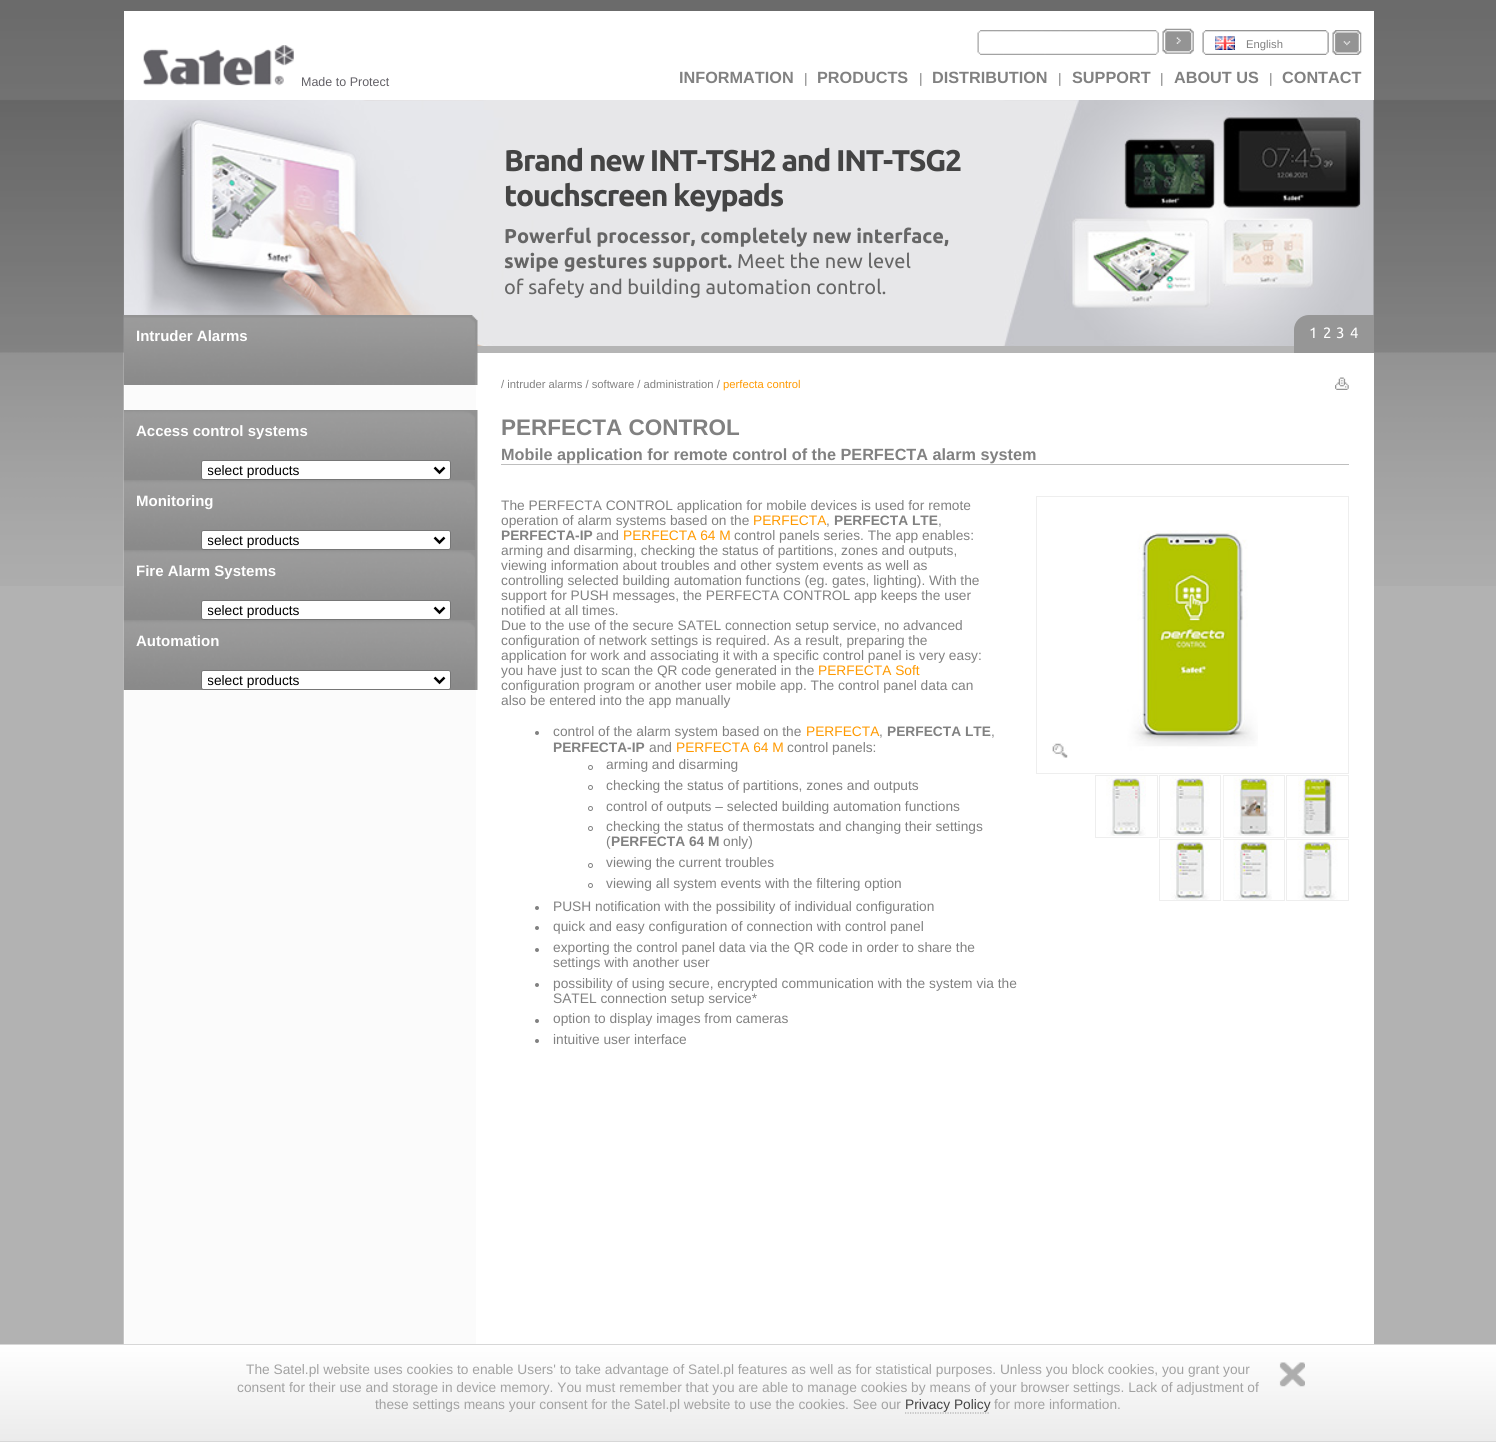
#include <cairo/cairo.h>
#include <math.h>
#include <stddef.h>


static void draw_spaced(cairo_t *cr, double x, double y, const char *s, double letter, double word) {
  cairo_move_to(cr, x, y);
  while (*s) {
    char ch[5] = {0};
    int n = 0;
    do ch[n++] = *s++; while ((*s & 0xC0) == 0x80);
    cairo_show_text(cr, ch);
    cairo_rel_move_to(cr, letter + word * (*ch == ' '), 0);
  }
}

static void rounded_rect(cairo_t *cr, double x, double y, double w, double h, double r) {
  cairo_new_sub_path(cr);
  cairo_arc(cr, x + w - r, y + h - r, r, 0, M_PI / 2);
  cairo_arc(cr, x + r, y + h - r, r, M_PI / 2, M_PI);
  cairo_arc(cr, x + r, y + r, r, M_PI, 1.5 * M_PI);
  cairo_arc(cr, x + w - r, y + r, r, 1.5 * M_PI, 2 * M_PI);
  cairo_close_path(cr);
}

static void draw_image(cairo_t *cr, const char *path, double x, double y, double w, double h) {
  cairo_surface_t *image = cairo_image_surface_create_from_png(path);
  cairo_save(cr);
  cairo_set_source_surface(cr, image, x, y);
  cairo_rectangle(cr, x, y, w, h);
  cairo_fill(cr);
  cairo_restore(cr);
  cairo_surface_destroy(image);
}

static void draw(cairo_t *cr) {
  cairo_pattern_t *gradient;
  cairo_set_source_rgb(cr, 178 / 255.0, 178 / 255.0, 178 / 255.0);
  cairo_paint(cr);
  draw_image(cr, "images/1.png", 0, 0, 1496, 586);
  cairo_set_source_rgb(cr, 1, 1, 1);
  cairo_rectangle(cr, 124, 11, 1250, 89);
  cairo_fill(cr);
  draw_image(cr, "images/2.png", 977, 30, 182, 25);
  draw_image(cr, "images/3.png", 1162, 28, 32, 26);
  draw_image(cr, "images/4.png", 1202, 30, 160, 25);
  draw_image(cr, "images/5.png", 1215, 36, 20, 14);
  draw_image(cr, "images/6.png", 143, 45, 151, 41);
  draw_image(cr, "images/7.png", 123, 100, 1251, 252);
  cairo_set_source_rgb(cr, 150 / 255.0, 150 / 255.0, 150 / 255.0);
  cairo_new_path(cr);
  cairo_move_to(cr, 1309, 315);
  cairo_line_to(cr, 1374, 315);
  cairo_line_to(cr, 1374, 353);
  cairo_line_to(cr, 1294, 353);
  cairo_line_to(cr, 1294, 330);
  cairo_curve_to(cr, 1294, 321.5, 1300.5, 315, 1309, 315);
  cairo_close_path(cr);
  cairo_fill(cr);
  cairo_set_source_rgb(cr, 181 / 255.0, 181 / 255.0, 181 / 255.0);
  cairo_rectangle(cr, 477, 346, 817, 7);
  cairo_fill(cr);
  draw_image(cr, "images/8.png", 123, 352, 353, 992);
  cairo_set_source_rgb(cr, 1, 1, 1);
  cairo_rectangle(cr, 476, 353, 898, 991);
  cairo_fill(cr);
  draw_image(cr, "images/9.png", 123, 315, 355, 70);
  draw_image(cr, "images/10.png", 123, 410, 355, 70);
  rounded_rect(cr, 201.5, 460.5, 249, 19, 2);
  cairo_fill_preserve(cr);
  cairo_set_source_rgb(cr, 118 / 255.0, 118 / 255.0, 118 / 255.0);
  cairo_set_line_width(cr, 1);
  cairo_stroke(cr);
  cairo_new_path(cr);
  cairo_move_to(cr, 434.5, 467.5);
  cairo_line_to(cr, 439.5, 472.5);
  cairo_line_to(cr, 444.5, 467.5);
  cairo_set_source_rgb(cr, 0, 0, 0);
  cairo_set_line_width(cr, 2.5);
  cairo_stroke(cr);
  draw_image(cr, "images/11.png", 123, 480, 355, 70);
  cairo_set_source_rgb(cr, 1, 1, 1);
  rounded_rect(cr, 201.5, 530.5, 249, 19, 2);
  cairo_fill_preserve(cr);
  cairo_set_source_rgb(cr, 118 / 255.0, 118 / 255.0, 118 / 255.0);
  cairo_set_line_width(cr, 1);
  cairo_stroke(cr);
  cairo_new_path(cr);
  cairo_move_to(cr, 434.5, 537.5);
  cairo_line_to(cr, 439.5, 542.5);
  cairo_line_to(cr, 444.5, 537.5);
  cairo_set_source_rgb(cr, 0, 0, 0);
  cairo_set_line_width(cr, 2.5);
  cairo_stroke(cr);
  draw_image(cr, "images/12.png", 123, 550, 355, 70);
  cairo_set_source_rgb(cr, 1, 1, 1);
  rounded_rect(cr, 201.5, 600.5, 249, 19, 2);
  cairo_fill_preserve(cr);
  cairo_set_source_rgb(cr, 118 / 255.0, 118 / 255.0, 118 / 255.0);
  cairo_set_line_width(cr, 1);
  cairo_stroke(cr);
  cairo_new_path(cr);
  cairo_move_to(cr, 434.5, 607.5);
  cairo_line_to(cr, 439.5, 612.5);
  cairo_line_to(cr, 444.5, 607.5);
  cairo_set_source_rgb(cr, 0, 0, 0);
  cairo_set_line_width(cr, 2.5);
  cairo_stroke(cr);
  draw_image(cr, "images/13.png", 123, 620, 355, 70);
  cairo_set_source_rgb(cr, 1, 1, 1);
  rounded_rect(cr, 201.5, 670.5, 249, 19, 2);
  cairo_fill_preserve(cr);
  cairo_set_source_rgb(cr, 118 / 255.0, 118 / 255.0, 118 / 255.0);
  cairo_set_line_width(cr, 1);
  cairo_stroke(cr);
  cairo_new_path(cr);
  cairo_move_to(cr, 434.5, 677.5);
  cairo_line_to(cr, 439.5, 682.5);
  cairo_line_to(cr, 444.5, 677.5);
  cairo_set_source_rgb(cr, 0, 0, 0);
  cairo_set_line_width(cr, 2.5);
  cairo_stroke(cr);
  draw_image(cr, "images/14.png", 1335, 377, 14, 13);
  cairo_set_source_rgb(cr, 190 / 255.0, 190 / 255.0, 190 / 255.0);
  cairo_rectangle(cr, 501, 464, 848, 1);
  cairo_fill(cr);
  cairo_set_source_rgb(cr, 129 / 255.0, 129 / 255.0, 129 / 255.0);
  cairo_arc(cr, 537, 733, 2, 0, 2 * M_PI);
  cairo_fill(cr);
  cairo_arc(cr, 590.5, 767.5, 2, 0, 2 * M_PI);
  cairo_set_line_width(cr, 1);
  cairo_stroke(cr);
  cairo_arc(cr, 590.5, 787.5, 2, 0, 2 * M_PI);
  cairo_stroke(cr);
  cairo_arc(cr, 590.5, 808.5, 2, 0, 2 * M_PI);
  cairo_stroke(cr);
  cairo_arc(cr, 590.5, 828.5, 2, 0, 2 * M_PI);
  cairo_stroke(cr);
  cairo_arc(cr, 590.5, 865.5, 2, 0, 2 * M_PI);
  cairo_stroke(cr);
  cairo_arc(cr, 590.5, 885.5, 2, 0, 2 * M_PI);
  cairo_stroke(cr);
  cairo_arc(cr, 537, 908, 2, 0, 2 * M_PI);
  cairo_fill(cr);
  cairo_arc(cr, 537, 928, 2, 0, 2 * M_PI);
  cairo_fill(cr);
  cairo_arc(cr, 537, 950, 2, 0, 2 * M_PI);
  cairo_fill(cr);
  cairo_arc(cr, 537, 985, 2, 0, 2 * M_PI);
  cairo_fill(cr);
  cairo_arc(cr, 537, 1021, 2, 0, 2 * M_PI);
  cairo_fill(cr);
  cairo_arc(cr, 537, 1041, 2, 0, 2 * M_PI);
  cairo_fill(cr);
  cairo_rectangle(cr, 1036.5, 496.5, 312, 277);
  cairo_set_source_rgb(cr, 238 / 255.0, 238 / 255.0, 238 / 255.0);
  cairo_stroke(cr);
  draw_image(cr, "images/15.png", 1052, 743, 16, 15);
  draw_image(cr, "images/16.png", 1067, 530, 191, 228);
  cairo_rectangle(cr, 1095.5, 775.5, 62, 62);
  cairo_stroke(cr);
  draw_image(cr, "images/17.png", 1106, 776, 40, 60);
  cairo_rectangle(cr, 1159.5, 775.5, 61, 62);
  cairo_stroke(cr);
  draw_image(cr, "images/18.png", 1170, 776, 40, 60);
  cairo_rectangle(cr, 1223.5, 775.5, 61, 62);
  cairo_stroke(cr);
  draw_image(cr, "images/19.png", 1223, 776, 51, 60);
  cairo_rectangle(cr, 1286.5, 775.5, 62, 62);
  cairo_stroke(cr);
  draw_image(cr, "images/20.png", 1298, 776, 38, 60);
  cairo_rectangle(cr, 1159.5, 839.5, 61, 61);
  cairo_stroke(cr);
  draw_image(cr, "images/21.png", 1170, 840, 40, 60);
  cairo_rectangle(cr, 1223.5, 839.5, 61, 61);
  cairo_stroke(cr);
  draw_image(cr, "images/22.png", 1223, 840, 49, 60);
  cairo_rectangle(cr, 1286.5, 839.5, 62, 61);
  cairo_stroke(cr);
  draw_image(cr, "images/23.png", 1297, 840, 41, 60);
  gradient = cairo_pattern_create_linear(748, 1345, 748, 1441);
  cairo_pattern_add_color_stop_rgba(gradient, 0, 1, 1, 1, 1);
  cairo_pattern_add_color_stop_rgba(gradient, 1, 235 / 255.0, 235 / 255.0, 235 / 255.0, 1);
  cairo_set_source(cr, gradient);
  cairo_pattern_destroy(gradient);
  cairo_rectangle(cr, 0, 1345, 1496, 96);
  cairo_fill(cr);
  cairo_set_source_rgb(cr, 215 / 255.0, 215 / 255.0, 215 / 255.0);
  cairo_rectangle(cr, 0, 1344, 1496, 1);
  cairo_fill(cr);
  cairo_rectangle(cr, 0, 1441, 1496, 1);
  cairo_fill(cr);
  cairo_new_path(cr);
  cairo_move_to(cr, 905, 1413);
  cairo_line_to(cr, 990, 1413);
  cairo_set_source_rgb(cr, 174 / 255.0, 174 / 255.0, 174 / 255.0);
  cairo_set_line_width(cr, 1.2);
  cairo_set_dash(cr, (double[]){1.25, 1.25}, 2, 0);
  cairo_stroke(cr);
  draw_image(cr, "images/24.png", 1279, 1362, 26, 25);
  cairo_select_font_face(cr, "Liberation Sans", CAIRO_FONT_SLANT_NORMAL, CAIRO_FONT_WEIGHT_NORMAL);
  cairo_set_font_size(cr, 11.25);
  cairo_set_source_rgb(cr, 129 / 255.0, 129 / 255.0, 129 / 255.0);
  cairo_move_to(cr, 1246, 48);
  cairo_show_text(cr, "English");
  cairo_set_font_size(cr, 12.5);
  cairo_set_source_rgb(cr, 98 / 255.0, 96 / 255.0, 102 / 255.0);
  cairo_move_to(cr, 301, 86);
  cairo_show_text(cr, "Made to Protect");
  cairo_select_font_face(cr, "Liberation Sans", CAIRO_FONT_SLANT_NORMAL, CAIRO_FONT_WEIGHT_BOLD);
  cairo_set_font_size(cr, 16.25);
  cairo_set_source_rgb(cr, 129 / 255.0, 129 / 255.0, 129 / 255.0);
  cairo_move_to(cr, 679, 83);
  cairo_show_text(cr, "INFORMATION");
  cairo_select_font_face(cr, "Liberation Sans", CAIRO_FONT_SLANT_NORMAL, CAIRO_FONT_WEIGHT_NORMAL);
  cairo_set_font_size(cr, 13.75);
  cairo_move_to(cr, 804, 83);
  cairo_show_text(cr, "|");
  cairo_select_font_face(cr, "Liberation Sans", CAIRO_FONT_SLANT_NORMAL, CAIRO_FONT_WEIGHT_BOLD);
  cairo_set_font_size(cr, 16.25);
  cairo_move_to(cr, 817, 83);
  cairo_show_text(cr, "PRODUCTS");
  cairo_select_font_face(cr, "Liberation Sans", CAIRO_FONT_SLANT_NORMAL, CAIRO_FONT_WEIGHT_NORMAL);
  cairo_set_font_size(cr, 13.75);
  cairo_move_to(cr, 919, 83);
  cairo_show_text(cr, "|");
  cairo_select_font_face(cr, "Liberation Sans", CAIRO_FONT_SLANT_NORMAL, CAIRO_FONT_WEIGHT_BOLD);
  cairo_set_font_size(cr, 16.25);
  cairo_move_to(cr, 932, 83);
  cairo_show_text(cr, "DISTRIBUTION");
  cairo_select_font_face(cr, "Liberation Sans", CAIRO_FONT_SLANT_NORMAL, CAIRO_FONT_WEIGHT_NORMAL);
  cairo_set_font_size(cr, 13.75);
  cairo_move_to(cr, 1058, 83);
  cairo_show_text(cr, "|");
  cairo_select_font_face(cr, "Liberation Sans", CAIRO_FONT_SLANT_NORMAL, CAIRO_FONT_WEIGHT_BOLD);
  cairo_set_font_size(cr, 16.25);
  cairo_move_to(cr, 1072, 83);
  cairo_show_text(cr, "SUPPORT");
  cairo_select_font_face(cr, "Liberation Sans", CAIRO_FONT_SLANT_NORMAL, CAIRO_FONT_WEIGHT_NORMAL);
  cairo_set_font_size(cr, 13.75);
  cairo_move_to(cr, 1160, 83);
  cairo_show_text(cr, "|");
  cairo_select_font_face(cr, "Liberation Sans", CAIRO_FONT_SLANT_NORMAL, CAIRO_FONT_WEIGHT_BOLD);
  cairo_set_font_size(cr, 16.25);
  cairo_move_to(cr, 1174, 83);
  cairo_show_text(cr, "ABOUT US");
  cairo_select_font_face(cr, "Liberation Sans", CAIRO_FONT_SLANT_NORMAL, CAIRO_FONT_WEIGHT_NORMAL);
  cairo_set_font_size(cr, 13.75);
  cairo_move_to(cr, 1269, 83);
  cairo_show_text(cr, "|");
  cairo_select_font_face(cr, "Liberation Sans", CAIRO_FONT_SLANT_NORMAL, CAIRO_FONT_WEIGHT_BOLD);
  cairo_set_font_size(cr, 16.25);
  cairo_move_to(cr, 1282, 83);
  cairo_show_text(cr, "CONTACT");
  cairo_select_font_face(cr, "Ubuntu", CAIRO_FONT_SLANT_NORMAL, CAIRO_FONT_WEIGHT_BOLD);
  cairo_set_font_size(cr, 30);
  cairo_set_source_rgb(cr, 68 / 255.0, 68 / 255.0, 68 / 255.0);
  draw_spaced(cr, 504, 171, "Brand new INT-TSH2 and INT-TSG2", -1.25, 0);
  draw_spaced(cr, 504, 206, "touchscreen keypads", -1.25, 0);
  cairo_set_font_size(cr, 20);
  cairo_set_source_rgb(cr, 102 / 255.0, 102 / 255.0, 102 / 255.0);
  cairo_move_to(cr, 504, 243);
  cairo_show_text(cr, "Powerful processor, completely new interface,");
  cairo_move_to(cr, 504, 268);
  cairo_show_text(cr, "swipe gestures support.");
  cairo_select_font_face(cr, "Ubuntu", CAIRO_FONT_SLANT_NORMAL, CAIRO_FONT_WEIGHT_NORMAL);
  cairo_move_to(cr, 737, 268);
  cairo_show_text(cr, "Meet the new level");
  cairo_move_to(cr, 504, 294);
  cairo_show_text(cr, "of safety and building automation control.");
  cairo_set_font_size(cr, 15);
  cairo_set_source_rgb(cr, 1, 1, 1);
  cairo_move_to(cr, 1309, 338);
  cairo_show_text(cr, "1");
  cairo_move_to(cr, 1323, 338);
  cairo_show_text(cr, "2");
  cairo_move_to(cr, 1336, 338);
  cairo_show_text(cr, "3");
  cairo_move_to(cr, 1350, 338);
  cairo_show_text(cr, "4");
  cairo_select_font_face(cr, "Liberation Sans", CAIRO_FONT_SLANT_NORMAL, CAIRO_FONT_WEIGHT_BOLD);
  cairo_move_to(cr, 136, 341);
  cairo_show_text(cr, "Intruder Alarms");
  cairo_move_to(cr, 136, 436);
  cairo_show_text(cr, "Access control systems");
  cairo_save(cr);
  cairo_rectangle(cr, 208, 461, 222, 18);
  cairo_clip(cr);
  cairo_select_font_face(cr, "Liberation Sans", CAIRO_FONT_SLANT_NORMAL, CAIRO_FONT_WEIGHT_NORMAL);
  cairo_set_font_size(cr, 13.75);
  cairo_set_source_rgb(cr, 0, 0, 0);
  cairo_move_to(cr, 207, 475);
  cairo_show_text(cr, "select products");
  cairo_restore(cr);
  cairo_move_to(cr, 136, 506);
  cairo_show_text(cr, "Monitoring");
  cairo_save(cr);
  cairo_rectangle(cr, 208, 531, 222, 18);
  cairo_clip(cr);
  cairo_select_font_face(cr, "Liberation Sans", CAIRO_FONT_SLANT_NORMAL, CAIRO_FONT_WEIGHT_NORMAL);
  cairo_set_font_size(cr, 13.75);
  cairo_set_source_rgb(cr, 0, 0, 0);
  cairo_move_to(cr, 207, 545);
  cairo_show_text(cr, "select products");
  cairo_restore(cr);
  cairo_move_to(cr, 136, 576);
  cairo_show_text(cr, "Fire Alarm Systems");
  cairo_save(cr);
  cairo_rectangle(cr, 208, 601, 222, 18);
  cairo_clip(cr);
  cairo_select_font_face(cr, "Liberation Sans", CAIRO_FONT_SLANT_NORMAL, CAIRO_FONT_WEIGHT_NORMAL);
  cairo_set_font_size(cr, 13.75);
  cairo_set_source_rgb(cr, 0, 0, 0);
  cairo_move_to(cr, 207, 615);
  cairo_show_text(cr, "select products");
  cairo_restore(cr);
  cairo_move_to(cr, 136, 646);
  cairo_show_text(cr, "Automation");
  cairo_save(cr);
  cairo_rectangle(cr, 208, 671, 222, 18);
  cairo_clip(cr);
  cairo_select_font_face(cr, "Liberation Sans", CAIRO_FONT_SLANT_NORMAL, CAIRO_FONT_WEIGHT_NORMAL);
  cairo_set_font_size(cr, 13.75);
  cairo_set_source_rgb(cr, 0, 0, 0);
  cairo_move_to(cr, 207, 685);
  cairo_show_text(cr, "select products");
  cairo_restore(cr);
  cairo_select_font_face(cr, "Liberation Sans", CAIRO_FONT_SLANT_NORMAL, CAIRO_FONT_WEIGHT_NORMAL);
  cairo_set_font_size(cr, 11.25);
  cairo_set_source_rgb(cr, 129 / 255.0, 129 / 255.0, 129 / 255.0);
  cairo_move_to(cr, 501, 388);
  cairo_show_text(cr, "/ intruder alarms / software / administration /");
  cairo_set_source_rgb(cr, 1, 153 / 255.0, 0);
  cairo_move_to(cr, 723, 388);
  cairo_show_text(cr, "perfecta control");
  cairo_select_font_face(cr, "Liberation Sans", CAIRO_FONT_SLANT_NORMAL, CAIRO_FONT_WEIGHT_BOLD);
  cairo_set_font_size(cr, 22.5);
  cairo_set_source_rgb(cr, 129 / 255.0, 129 / 255.0, 129 / 255.0);
  cairo_move_to(cr, 501, 435);
  cairo_show_text(cr, "PERFECTA CONTROL");
  cairo_set_font_size(cr, 16.25);
  cairo_move_to(cr, 501, 460);
  cairo_show_text(cr, "Mobile application for remote control of the PERFECTA alarm system");
  cairo_select_font_face(cr, "Liberation Sans", CAIRO_FONT_SLANT_NORMAL, CAIRO_FONT_WEIGHT_NORMAL);
  cairo_set_font_size(cr, 13.75);
  cairo_move_to(cr, 501, 510);
  cairo_show_text(cr, "The PERFECTA CONTROL application for mobile devices is used for remote");
  cairo_move_to(cr, 501, 525);
  cairo_show_text(cr, "operation of alarm systems based on the");
  cairo_set_source_rgb(cr, 1, 153 / 255.0, 0);
  cairo_move_to(cr, 753, 525);
  cairo_show_text(cr, "PERFECTA");
  cairo_set_source_rgb(cr, 129 / 255.0, 129 / 255.0, 129 / 255.0);
  cairo_move_to(cr, 826, 525);
  cairo_show_text(cr, ",");
  cairo_select_font_face(cr, "Liberation Sans", CAIRO_FONT_SLANT_NORMAL, CAIRO_FONT_WEIGHT_BOLD);
  cairo_move_to(cr, 834, 525);
  cairo_show_text(cr, "PERFECTA LTE");
  cairo_select_font_face(cr, "Liberation Sans", CAIRO_FONT_SLANT_NORMAL, CAIRO_FONT_WEIGHT_NORMAL);
  cairo_move_to(cr, 938, 525);
  cairo_show_text(cr, ",");
  cairo_select_font_face(cr, "Liberation Sans", CAIRO_FONT_SLANT_NORMAL, CAIRO_FONT_WEIGHT_BOLD);
  cairo_move_to(cr, 501, 540);
  cairo_show_text(cr, "PERFECTA-IP");
  cairo_select_font_face(cr, "Liberation Sans", CAIRO_FONT_SLANT_NORMAL, CAIRO_FONT_WEIGHT_NORMAL);
  cairo_move_to(cr, 596, 540);
  cairo_show_text(cr, "and");
  cairo_set_source_rgb(cr, 1, 153 / 255.0, 0);
  cairo_move_to(cr, 623, 540);
  cairo_show_text(cr, "PERFECTA 64 M");
  cairo_set_source_rgb(cr, 129 / 255.0, 129 / 255.0, 129 / 255.0);
  cairo_move_to(cr, 734, 540);
  cairo_show_text(cr, "control panels series. The app enables:");
  cairo_move_to(cr, 501, 555);
  cairo_show_text(cr, "arming and disarming, checking the status of partitions, zones and outputs,");
  cairo_move_to(cr, 501, 570);
  cairo_show_text(cr, "viewing information about troubles and other system events as well as");
  cairo_move_to(cr, 501, 585);
  cairo_show_text(cr, "controlling selected building automation functions (eg. gates, lighting). With the");
  cairo_move_to(cr, 501, 600);
  cairo_show_text(cr, "support for PUSH messages, the PERFECTA CONTROL app keeps the user");
  cairo_move_to(cr, 501, 615);
  cairo_show_text(cr, "notified at all times.");
  cairo_move_to(cr, 501, 630);
  cairo_show_text(cr, "Due to the use of the secure SATEL connection setup service, no advanced");
  cairo_move_to(cr, 501, 645);
  cairo_show_text(cr, "configuration of network settings is required. As a result, preparing the");
  cairo_move_to(cr, 501, 660);
  cairo_show_text(cr, "application for work and associating it with a specific control panel is very easy:");
  cairo_move_to(cr, 501, 675);
  cairo_show_text(cr, "you have just to scan the QR code generated in the");
  cairo_set_source_rgb(cr, 1, 153 / 255.0, 0);
  cairo_move_to(cr, 818, 675);
  cairo_show_text(cr, "PERFECTA Soft");
  cairo_set_source_rgb(cr, 129 / 255.0, 129 / 255.0, 129 / 255.0);
  cairo_move_to(cr, 501, 690);
  cairo_show_text(cr, "configuration program or another user mobile app. The control panel data can");
  cairo_move_to(cr, 501, 705);
  cairo_show_text(cr, "also be entered into the app manually");
  cairo_move_to(cr, 553, 736);
  cairo_show_text(cr, "control of the alarm system based on the");
  cairo_set_source_rgb(cr, 1, 153 / 255.0, 0);
  cairo_move_to(cr, 806, 736);
  cairo_show_text(cr, "PERFECTA");
  cairo_select_font_face(cr, "Liberation Sans", CAIRO_FONT_SLANT_NORMAL, CAIRO_FONT_WEIGHT_BOLD);
  cairo_set_source_rgb(cr, 129 / 255.0, 129 / 255.0, 129 / 255.0);
  cairo_move_to(cr, 887, 736);
  cairo_show_text(cr, "PERFECTA LTE");
  cairo_select_font_face(cr, "Liberation Sans", CAIRO_FONT_SLANT_NORMAL, CAIRO_FONT_WEIGHT_NORMAL);
  cairo_move_to(cr, 879, 736);
  cairo_show_text(cr, ",");
  cairo_move_to(cr, 991, 736);
  cairo_show_text(cr, ",");
  cairo_select_font_face(cr, "Liberation Sans", CAIRO_FONT_SLANT_NORMAL, CAIRO_FONT_WEIGHT_BOLD);
  cairo_move_to(cr, 553, 752);
  cairo_show_text(cr, "PERFECTA-IP");
  cairo_select_font_face(cr, "Liberation Sans", CAIRO_FONT_SLANT_NORMAL, CAIRO_FONT_WEIGHT_NORMAL);
  cairo_move_to(cr, 649, 752);
  cairo_show_text(cr, "and");
  cairo_set_source_rgb(cr, 1, 153 / 255.0, 0);
  cairo_move_to(cr, 676, 752);
  cairo_show_text(cr, "PERFECTA 64 M");
  cairo_set_source_rgb(cr, 129 / 255.0, 129 / 255.0, 129 / 255.0);
  cairo_move_to(cr, 787, 752);
  cairo_show_text(cr, "control panels:");
  cairo_move_to(cr, 606, 769);
  cairo_show_text(cr, "arming and disarming");
  cairo_move_to(cr, 606, 790);
  cairo_show_text(cr, "checking the status of partitions, zones and outputs");
  cairo_move_to(cr, 606, 811);
  cairo_show_text(cr, "control of outputs – selected building automation functions");
  cairo_move_to(cr, 606, 831);
  cairo_show_text(cr, "checking the status of thermostats and changing their settings");
  cairo_move_to(cr, 606, 846);
  cairo_show_text(cr, "(");
  cairo_select_font_face(cr, "Liberation Sans", CAIRO_FONT_SLANT_NORMAL, CAIRO_FONT_WEIGHT_BOLD);
  cairo_move_to(cr, 611, 846);
  cairo_show_text(cr, "PERFECTA 64 M");
  cairo_select_font_face(cr, "Liberation Sans", CAIRO_FONT_SLANT_NORMAL, CAIRO_FONT_WEIGHT_NORMAL);
  cairo_move_to(cr, 723, 846);
  cairo_show_text(cr, "only)");
  cairo_move_to(cr, 606, 867);
  cairo_show_text(cr, "viewing the current troubles");
  cairo_move_to(cr, 606, 888);
  cairo_show_text(cr, "viewing all system events with the filtering option");
  cairo_move_to(cr, 553, 911);
  cairo_show_text(cr, "PUSH notification with the possibility of individual configuration");
  cairo_move_to(cr, 553, 931);
  cairo_show_text(cr, "quick and easy configuration of connection with control panel");
  cairo_move_to(cr, 553, 952);
  cairo_show_text(cr, "exporting the control panel data via the QR code in order to share the");
  cairo_move_to(cr, 553, 967);
  cairo_show_text(cr, "settings with another user");
  cairo_move_to(cr, 553, 988);
  cairo_show_text(cr, "possibility of using secure, encrypted communication with the system via the");
  cairo_move_to(cr, 553, 1003);
  cairo_show_text(cr, "SATEL connection setup service*");
  cairo_move_to(cr, 553, 1023);
  cairo_show_text(cr, "option to display images from cameras");
  cairo_move_to(cr, 553, 1044);
  cairo_show_text(cr, "intuitive user interface");
  cairo_set_source_rgb(cr, 162 / 255.0, 162 / 255.0, 162 / 255.0);
  cairo_move_to(cr, 246, 1374);
  cairo_show_text(cr, "The Satel.pl website uses cookies to enable Users' to take advantage of Satel.pl features as well as for statistical purposes. Unless you block cookies, you grant your");
  cairo_move_to(cr, 237, 1392);
  cairo_show_text(cr, "consent for their use and storage in device memory. You must remember that you are able to manage cookies by means of your browser settings. Lack of adjustment of");
  cairo_move_to(cr, 375, 1409);
  cairo_show_text(cr, "these settings means your consent for the Satel.pl website to use the cookies. See our");
  cairo_set_source_rgb(cr, 68 / 255.0, 68 / 255.0, 68 / 255.0);
  cairo_move_to(cr, 905, 1409);
  cairo_show_text(cr, "Privacy Policy");
  cairo_set_source_rgb(cr, 162 / 255.0, 162 / 255.0, 162 / 255.0);
  cairo_move_to(cr, 994, 1409);
  cairo_show_text(cr, "for more information.");
}

int main(void) {
  cairo_surface_t *surface = cairo_image_surface_create(CAIRO_FORMAT_RGB24, 1496, 1442);
  cairo_t *cr = cairo_create(surface);
  cairo_font_options_t *options = cairo_font_options_create();
  cairo_font_options_set_hint_metrics(options, CAIRO_HINT_METRICS_OFF);
  cairo_font_options_set_hint_style(options, CAIRO_HINT_STYLE_NONE);
  cairo_set_font_options(cr, options);
  cairo_set_miter_limit(cr, 4);
  draw(cr);
  cairo_surface_write_to_png(surface, "out.png");
  cairo_font_options_destroy(options);
  cairo_destroy(cr);
  cairo_surface_destroy(surface);
  return 0;
}
